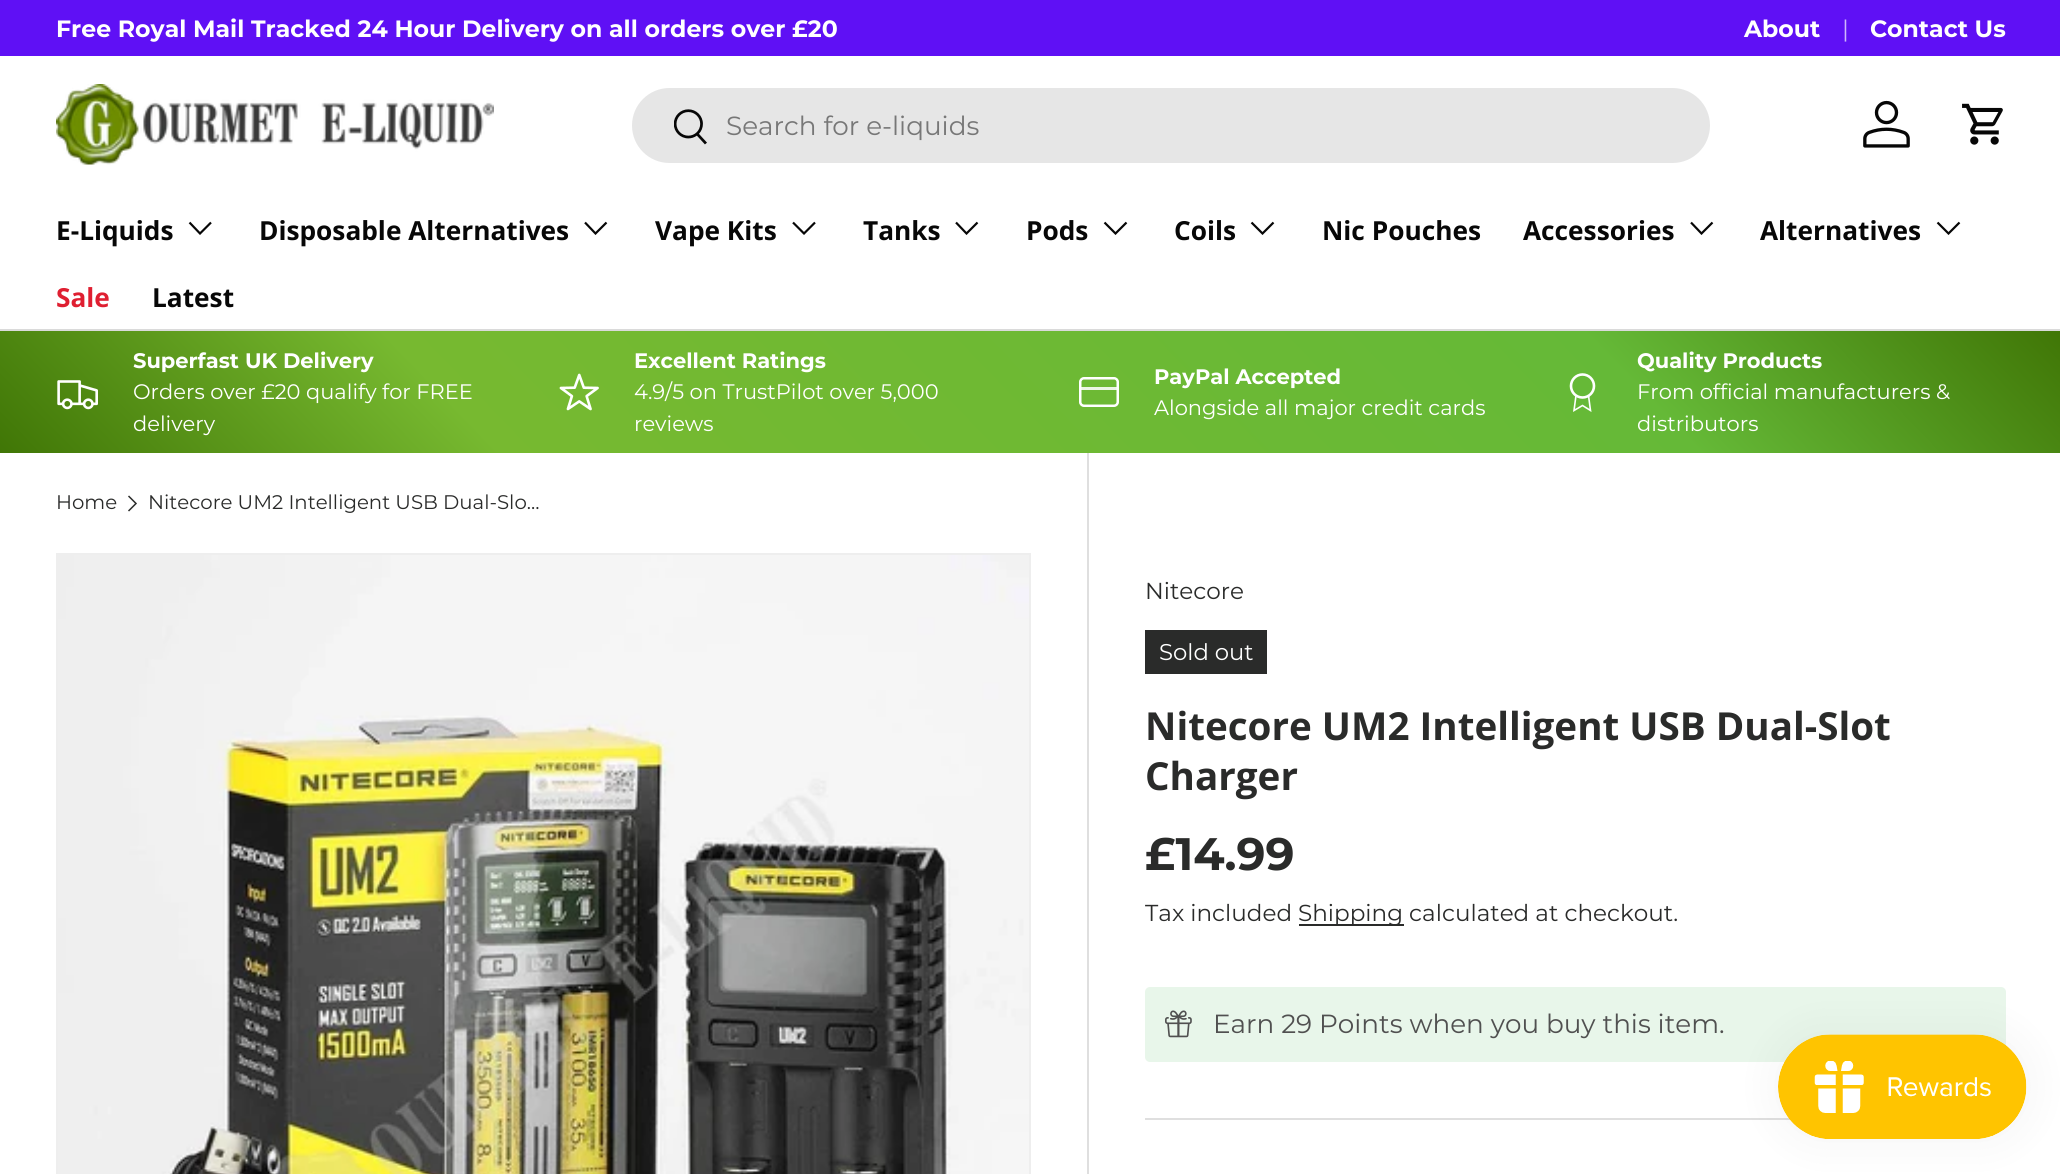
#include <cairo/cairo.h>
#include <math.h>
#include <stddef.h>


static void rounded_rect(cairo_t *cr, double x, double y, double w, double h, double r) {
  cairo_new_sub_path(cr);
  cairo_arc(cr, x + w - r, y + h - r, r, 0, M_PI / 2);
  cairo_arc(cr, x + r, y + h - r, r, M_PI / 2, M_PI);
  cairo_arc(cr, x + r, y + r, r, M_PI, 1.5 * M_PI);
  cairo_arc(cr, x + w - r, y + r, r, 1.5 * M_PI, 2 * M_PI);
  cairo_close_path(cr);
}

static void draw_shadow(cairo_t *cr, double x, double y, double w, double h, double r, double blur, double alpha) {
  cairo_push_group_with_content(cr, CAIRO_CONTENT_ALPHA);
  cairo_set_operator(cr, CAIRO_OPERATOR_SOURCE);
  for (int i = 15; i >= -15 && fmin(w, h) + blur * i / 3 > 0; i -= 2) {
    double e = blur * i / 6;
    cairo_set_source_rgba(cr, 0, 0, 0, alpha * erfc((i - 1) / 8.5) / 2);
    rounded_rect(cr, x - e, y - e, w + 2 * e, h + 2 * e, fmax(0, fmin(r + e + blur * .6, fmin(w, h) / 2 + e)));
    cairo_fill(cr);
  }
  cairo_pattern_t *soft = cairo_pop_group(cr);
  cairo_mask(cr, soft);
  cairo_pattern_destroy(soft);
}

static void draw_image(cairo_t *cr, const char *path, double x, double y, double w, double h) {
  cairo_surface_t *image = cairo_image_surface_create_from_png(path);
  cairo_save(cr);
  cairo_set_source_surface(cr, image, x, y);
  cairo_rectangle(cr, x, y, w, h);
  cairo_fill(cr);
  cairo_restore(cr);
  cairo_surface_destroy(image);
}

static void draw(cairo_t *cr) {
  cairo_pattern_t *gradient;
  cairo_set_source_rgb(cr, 1, 1, 1);
  cairo_paint(cr);
  cairo_set_source_rgb(cr, 95 / 255.0, 16 / 255.0, 245 / 255.0);
  cairo_rectangle(cr, 0, 0, 2060, 56);
  cairo_fill(cr);
  cairo_set_source_rgb(cr, 218 / 255.0, 218 / 255.0, 218 / 255.0);
  cairo_rectangle(cr, 0, 329, 2060, 2);
  cairo_fill(cr);
  draw_image(cr, "images/1.png", 56, 84, 438, 81);
  cairo_set_source_rgb(cr, 230 / 255.0, 230 / 255.0, 230 / 255.0);
  rounded_rect(cr, 632, 88, 1078, 75, 37.5);
  cairo_fill(cr);
  draw_image(cr, "images/2.png", 674, 109, 33, 36);
  draw_image(cr, "images/3.png", 1863, 100, 47, 48);
  draw_image(cr, "images/4.png", 1962, 103, 41, 42);
  cairo_new_path(cr);
  cairo_move_to(cr, 211, 222.5);
  cairo_line_to(cr, 200, 233.5);
  cairo_line_to(cr, 189.5, 222.5);
  cairo_set_source_rgb(cr, 7 / 255.0, 7 / 255.0, 7 / 255.0);
  cairo_set_line_width(cr, 2.2);
  cairo_stroke(cr);
  cairo_new_path(cr);
  cairo_move_to(cr, 606.5, 222.5);
  cairo_line_to(cr, 595.5, 233.5);
  cairo_line_to(cr, 585, 222.5);
  cairo_stroke(cr);
  cairo_new_path(cr);
  cairo_move_to(cr, 815, 222.5);
  cairo_line_to(cr, 804, 233.5);
  cairo_line_to(cr, 793, 222.5);
  cairo_stroke(cr);
  cairo_new_path(cr);
  cairo_move_to(cr, 977.5, 222.5);
  cairo_line_to(cr, 966.5, 233.5);
  cairo_line_to(cr, 956, 222.5);
  cairo_stroke(cr);
  cairo_new_path(cr);
  cairo_move_to(cr, 1126.5, 222.5);
  cairo_line_to(cr, 1115.5, 233.5);
  cairo_line_to(cr, 1104.5, 222.5);
  cairo_stroke(cr);
  cairo_new_path(cr);
  cairo_move_to(cr, 1273.5, 222.5);
  cairo_line_to(cr, 1262.5, 233.5);
  cairo_line_to(cr, 1251.5, 222.5);
  cairo_stroke(cr);
  cairo_new_path(cr);
  cairo_move_to(cr, 1712.5, 222.5);
  cairo_line_to(cr, 1701.5, 233.5);
  cairo_line_to(cr, 1691, 222.5);
  cairo_stroke(cr);
  cairo_new_path(cr);
  cairo_move_to(cr, 1959.5, 222.5);
  cairo_line_to(cr, 1948.5, 233.5);
  cairo_line_to(cr, 1937.5, 222.5);
  cairo_stroke(cr);
  gradient = cairo_pattern_create_linear(467, 937, 1595, -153);
  cairo_pattern_add_color_stop_rgba(gradient, 0, 64 / 255.0, 118 / 255.0, 6 / 255.0, 1);
  cairo_pattern_add_color_stop_rgba(gradient, 0.23, 119 / 255.0, 185 / 255.0, 48 / 255.0, 1);
  cairo_pattern_add_color_stop_rgba(gradient, 0.78, 101 / 255.0, 185 / 255.0, 55 / 255.0, 1);
  cairo_pattern_add_color_stop_rgba(gradient, 1, 64 / 255.0, 118 / 255.0, 6 / 255.0, 1);
  cairo_set_source(cr, gradient);
  cairo_pattern_destroy(gradient);
  cairo_rectangle(cr, 0, 331, 2060, 122);
  cairo_fill(cr);
  draw_image(cr, "images/5.png", 57, 380, 41, 30);
  draw_image(cr, "images/6.png", 559, 373, 40, 38);
  rounded_rect(cr, 1080.25, 378.25, 37.5, 27.5, 3.75);
  cairo_set_source_rgb(cr, 1, 1, 1);
  cairo_set_line_width(cr, 2.5);
  cairo_stroke(cr);
  cairo_set_source_rgba(cr, 1, 1, 1, 0.87);
  cairo_rectangle(cr, 1081, 387, 37, 3);
  cairo_fill(cr);
  cairo_arc(cr, 1582.5, 386, 11.5, 0, 2 * M_PI);
  cairo_set_source_rgb(cr, 1, 1, 1);
  cairo_set_line_width(cr, 2.6);
  cairo_stroke(cr);
  cairo_new_path(cr);
  cairo_move_to(cr, 1576, 395.5);
  cairo_line_to(cr, 1574, 410.5);
  cairo_line_to(cr, 1582.5, 405.5);
  cairo_line_to(cr, 1590.5, 410.5);
  cairo_line_to(cr, 1588.5, 395.5);
  cairo_set_line_width(cr, 1.6);
  cairo_stroke(cr);
  cairo_new_path(cr);
  cairo_move_to(cr, 128.5, 496);
  cairo_line_to(cr, 136, 503.5);
  cairo_line_to(cr, 128.5, 511);
  cairo_set_source_rgb(cr, 42 / 255.0, 43 / 255.0, 42 / 255.0);
  cairo_set_line_width(cr, 1.5);
  cairo_stroke(cr);
  cairo_rectangle(cr, 57, 554, 973, 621);
  cairo_set_source_rgb(cr, 238 / 255.0, 238 / 255.0, 238 / 255.0);
  cairo_set_line_width(cr, 2);
  cairo_stroke(cr);
  draw_image(cr, "images/7.png", 58, 555, 971, 619);
  cairo_set_source_rgb(cr, 223 / 255.0, 223 / 255.0, 223 / 255.0);
  cairo_rectangle(cr, 1087, 453, 2, 721);
  cairo_fill(cr);
  cairo_set_source_rgb(cr, 42 / 255.0, 43 / 255.0, 42 / 255.0);
  cairo_rectangle(cr, 1145, 630, 122, 44);
  cairo_fill(cr);
  cairo_rectangle(cr, 1299, 924, 105, 2);
  cairo_fill(cr);
  cairo_set_source_rgb(cr, 232 / 255.0, 246 / 255.0, 234 / 255.0);
  rounded_rect(cr, 1145, 987, 861, 75, 5);
  cairo_fill(cr);
  draw_image(cr, "images/8.png", 1165, 1010, 27, 28);
  cairo_set_source_rgb(cr, 223 / 255.0, 223 / 255.0, 223 / 255.0);
  cairo_rectangle(cr, 1145, 1118, 645, 2);
  cairo_fill(cr);
  cairo_set_source_rgb(cr, 0, 0, 0);
  draw_shadow(cr, 1778, 1034, 249, 105, 52.5, 22, 0.05);
  draw_image(cr, "images/9.png", 1778, 1034, 249, 105);
  cairo_select_font_face(cr, "Montserrat", CAIRO_FONT_SLANT_NORMAL, CAIRO_FONT_WEIGHT_BOLD);
  cairo_set_font_size(cr, 23.6);
  cairo_set_source_rgb(cr, 1, 1, 1);
  cairo_move_to(cr, 56, 37);
  cairo_show_text(cr, "Free Royal Mail Tracked 24 Hour Delivery on all orders over £20");
  cairo_move_to(cr, 1744, 37);
  cairo_show_text(cr, "About");
  cairo_select_font_face(cr, "Montserrat", CAIRO_FONT_SLANT_NORMAL, CAIRO_FONT_WEIGHT_NORMAL);
  cairo_set_source_rgb(cr, 207 / 255.0, 183 / 255.0, 252 / 255.0);
  cairo_move_to(cr, 1842, 37);
  cairo_show_text(cr, "|");
  cairo_select_font_face(cr, "Montserrat", CAIRO_FONT_SLANT_NORMAL, CAIRO_FONT_WEIGHT_BOLD);
  cairo_set_source_rgb(cr, 1, 1, 1);
  cairo_move_to(cr, 1870, 37);
  cairo_show_text(cr, "Contact Us");
  cairo_select_font_face(cr, "Montserrat", CAIRO_FONT_SLANT_NORMAL, CAIRO_FONT_WEIGHT_NORMAL);
  cairo_set_font_size(cr, 26.25);
  cairo_set_source_rgb(cr, 119 / 255.0, 119 / 255.0, 119 / 255.0);
  cairo_move_to(cr, 726, 135);
  cairo_show_text(cr, "Search for e-liquids");
  cairo_select_font_face(cr, "Open Sans", CAIRO_FONT_SLANT_NORMAL, CAIRO_FONT_WEIGHT_BOLD);
  cairo_set_source_rgb(cr, 7 / 255.0, 7 / 255.0, 7 / 255.0);
  cairo_move_to(cr, 56, 240);
  cairo_show_text(cr, "E-Liquids");
  cairo_move_to(cr, 259, 240);
  cairo_show_text(cr, "Disposable Alternatives");
  cairo_move_to(cr, 655, 240);
  cairo_show_text(cr, "Vape Kits");
  cairo_move_to(cr, 863, 240);
  cairo_show_text(cr, "Tanks");
  cairo_move_to(cr, 1026, 240);
  cairo_show_text(cr, "Pods");
  cairo_move_to(cr, 1174, 240);
  cairo_show_text(cr, "Coils");
  cairo_move_to(cr, 1322, 240);
  cairo_show_text(cr, "Nic Pouches");
  cairo_move_to(cr, 1523, 240);
  cairo_show_text(cr, "Accessories");
  cairo_move_to(cr, 1760, 240);
  cairo_show_text(cr, "Alternatives");
  cairo_set_source_rgb(cr, 223 / 255.0, 31 / 255.0, 49 / 255.0);
  cairo_move_to(cr, 56, 307);
  cairo_show_text(cr, "Sale");
  cairo_set_source_rgb(cr, 7 / 255.0, 7 / 255.0, 7 / 255.0);
  cairo_move_to(cr, 152, 307);
  cairo_show_text(cr, "Latest");
  cairo_select_font_face(cr, "Montserrat", CAIRO_FONT_SLANT_NORMAL, CAIRO_FONT_WEIGHT_BOLD);
  cairo_set_font_size(cr, 21);
  cairo_set_source_rgb(cr, 1, 1, 1);
  cairo_move_to(cr, 133, 368);
  cairo_show_text(cr, "Superfast UK Delivery");
  cairo_select_font_face(cr, "Montserrat", CAIRO_FONT_SLANT_NORMAL, CAIRO_FONT_WEIGHT_NORMAL);
  cairo_move_to(cr, 133, 399);
  cairo_show_text(cr, "Orders over £20 qualify for FREE");
  cairo_move_to(cr, 133, 431);
  cairo_show_text(cr, "delivery");
  cairo_select_font_face(cr, "Montserrat", CAIRO_FONT_SLANT_NORMAL, CAIRO_FONT_WEIGHT_BOLD);
  cairo_move_to(cr, 634, 368);
  cairo_show_text(cr, "Excellent Ratings");
  cairo_select_font_face(cr, "Montserrat", CAIRO_FONT_SLANT_NORMAL, CAIRO_FONT_WEIGHT_NORMAL);
  cairo_move_to(cr, 634, 399);
  cairo_show_text(cr, "4.9/5 on TrustPilot over 5,000");
  cairo_move_to(cr, 634, 431);
  cairo_show_text(cr, "reviews");
  cairo_select_font_face(cr, "Montserrat", CAIRO_FONT_SLANT_NORMAL, CAIRO_FONT_WEIGHT_BOLD);
  cairo_move_to(cr, 1154, 384);
  cairo_show_text(cr, "PayPal Accepted");
  cairo_select_font_face(cr, "Montserrat", CAIRO_FONT_SLANT_NORMAL, CAIRO_FONT_WEIGHT_NORMAL);
  cairo_move_to(cr, 1154, 415);
  cairo_show_text(cr, "Alongside all major credit cards");
  cairo_select_font_face(cr, "Montserrat", CAIRO_FONT_SLANT_NORMAL, CAIRO_FONT_WEIGHT_BOLD);
  cairo_move_to(cr, 1637, 368);
  cairo_show_text(cr, "Quality Products");
  cairo_select_font_face(cr, "Montserrat", CAIRO_FONT_SLANT_NORMAL, CAIRO_FONT_WEIGHT_NORMAL);
  cairo_move_to(cr, 1637, 399);
  cairo_show_text(cr, "From official manufacturers &");
  cairo_move_to(cr, 1637, 431);
  cairo_show_text(cr, "distributors");
  cairo_set_font_size(cr, 19.7);
  cairo_set_source_rgb(cr, 42 / 255.0, 43 / 255.0, 42 / 255.0);
  cairo_move_to(cr, 56, 509);
  cairo_show_text(cr, "Home");
  cairo_move_to(cr, 148, 509);
  cairo_show_text(cr, "Nitecore UM2 Intelligent USB Dual-Slo…");
  cairo_set_font_size(cr, 23.1);
  cairo_move_to(cr, 1145, 599);
  cairo_show_text(cr, "Nitecore");
  cairo_set_font_size(cr, 22.75);
  cairo_set_source_rgb(cr, 1, 1, 1);
  cairo_move_to(cr, 1159, 660);
  cairo_show_text(cr, "Sold out");
  cairo_select_font_face(cr, "Open Sans", CAIRO_FONT_SLANT_NORMAL, CAIRO_FONT_WEIGHT_BOLD);
  cairo_set_font_size(cr, 38.6);
  cairo_set_source_rgb(cr, 42 / 255.0, 43 / 255.0, 42 / 255.0);
  cairo_move_to(cr, 1145, 740);
  cairo_show_text(cr, "Nitecore UM2 Intelligent USB Dual-Slot");
  cairo_move_to(cr, 1145, 790);
  cairo_show_text(cr, "Charger");
  cairo_select_font_face(cr, "Montserrat", CAIRO_FONT_SLANT_NORMAL, CAIRO_FONT_WEIGHT_BOLD);
  cairo_set_font_size(cr, 45.5);
  cairo_move_to(cr, 1145, 870);
  cairo_show_text(cr, "£14.99");
  cairo_select_font_face(cr, "Montserrat", CAIRO_FONT_SLANT_NORMAL, CAIRO_FONT_WEIGHT_NORMAL);
  cairo_set_font_size(cr, 23.1);
  cairo_move_to(cr, 1145, 921);
  cairo_show_text(cr, "Tax included");
  cairo_move_to(cr, 1298, 921);
  cairo_show_text(cr, "Shipping calculated at checkout.");
  cairo_set_font_size(cr, 26.25);
  cairo_set_source_rgb(cr, 80 / 255.0, 80 / 255.0, 80 / 255.0);
  cairo_move_to(cr, 1213, 1033);
  cairo_show_text(cr, "Earn 29 Points when you buy this item.");
}

int main(void) {
  cairo_surface_t *surface = cairo_image_surface_create(CAIRO_FORMAT_RGB24, 2060, 1174);
  cairo_t *cr = cairo_create(surface);
  cairo_font_options_t *options = cairo_font_options_create();
  cairo_font_options_set_hint_metrics(options, CAIRO_HINT_METRICS_OFF);
  cairo_font_options_set_hint_style(options, CAIRO_HINT_STYLE_NONE);
  cairo_set_font_options(cr, options);
  cairo_set_miter_limit(cr, 4);
  draw(cr);
  cairo_surface_write_to_png(surface, "out.png");
  cairo_font_options_destroy(options);
  cairo_destroy(cr);
  cairo_surface_destroy(surface);
  return 0;
}
